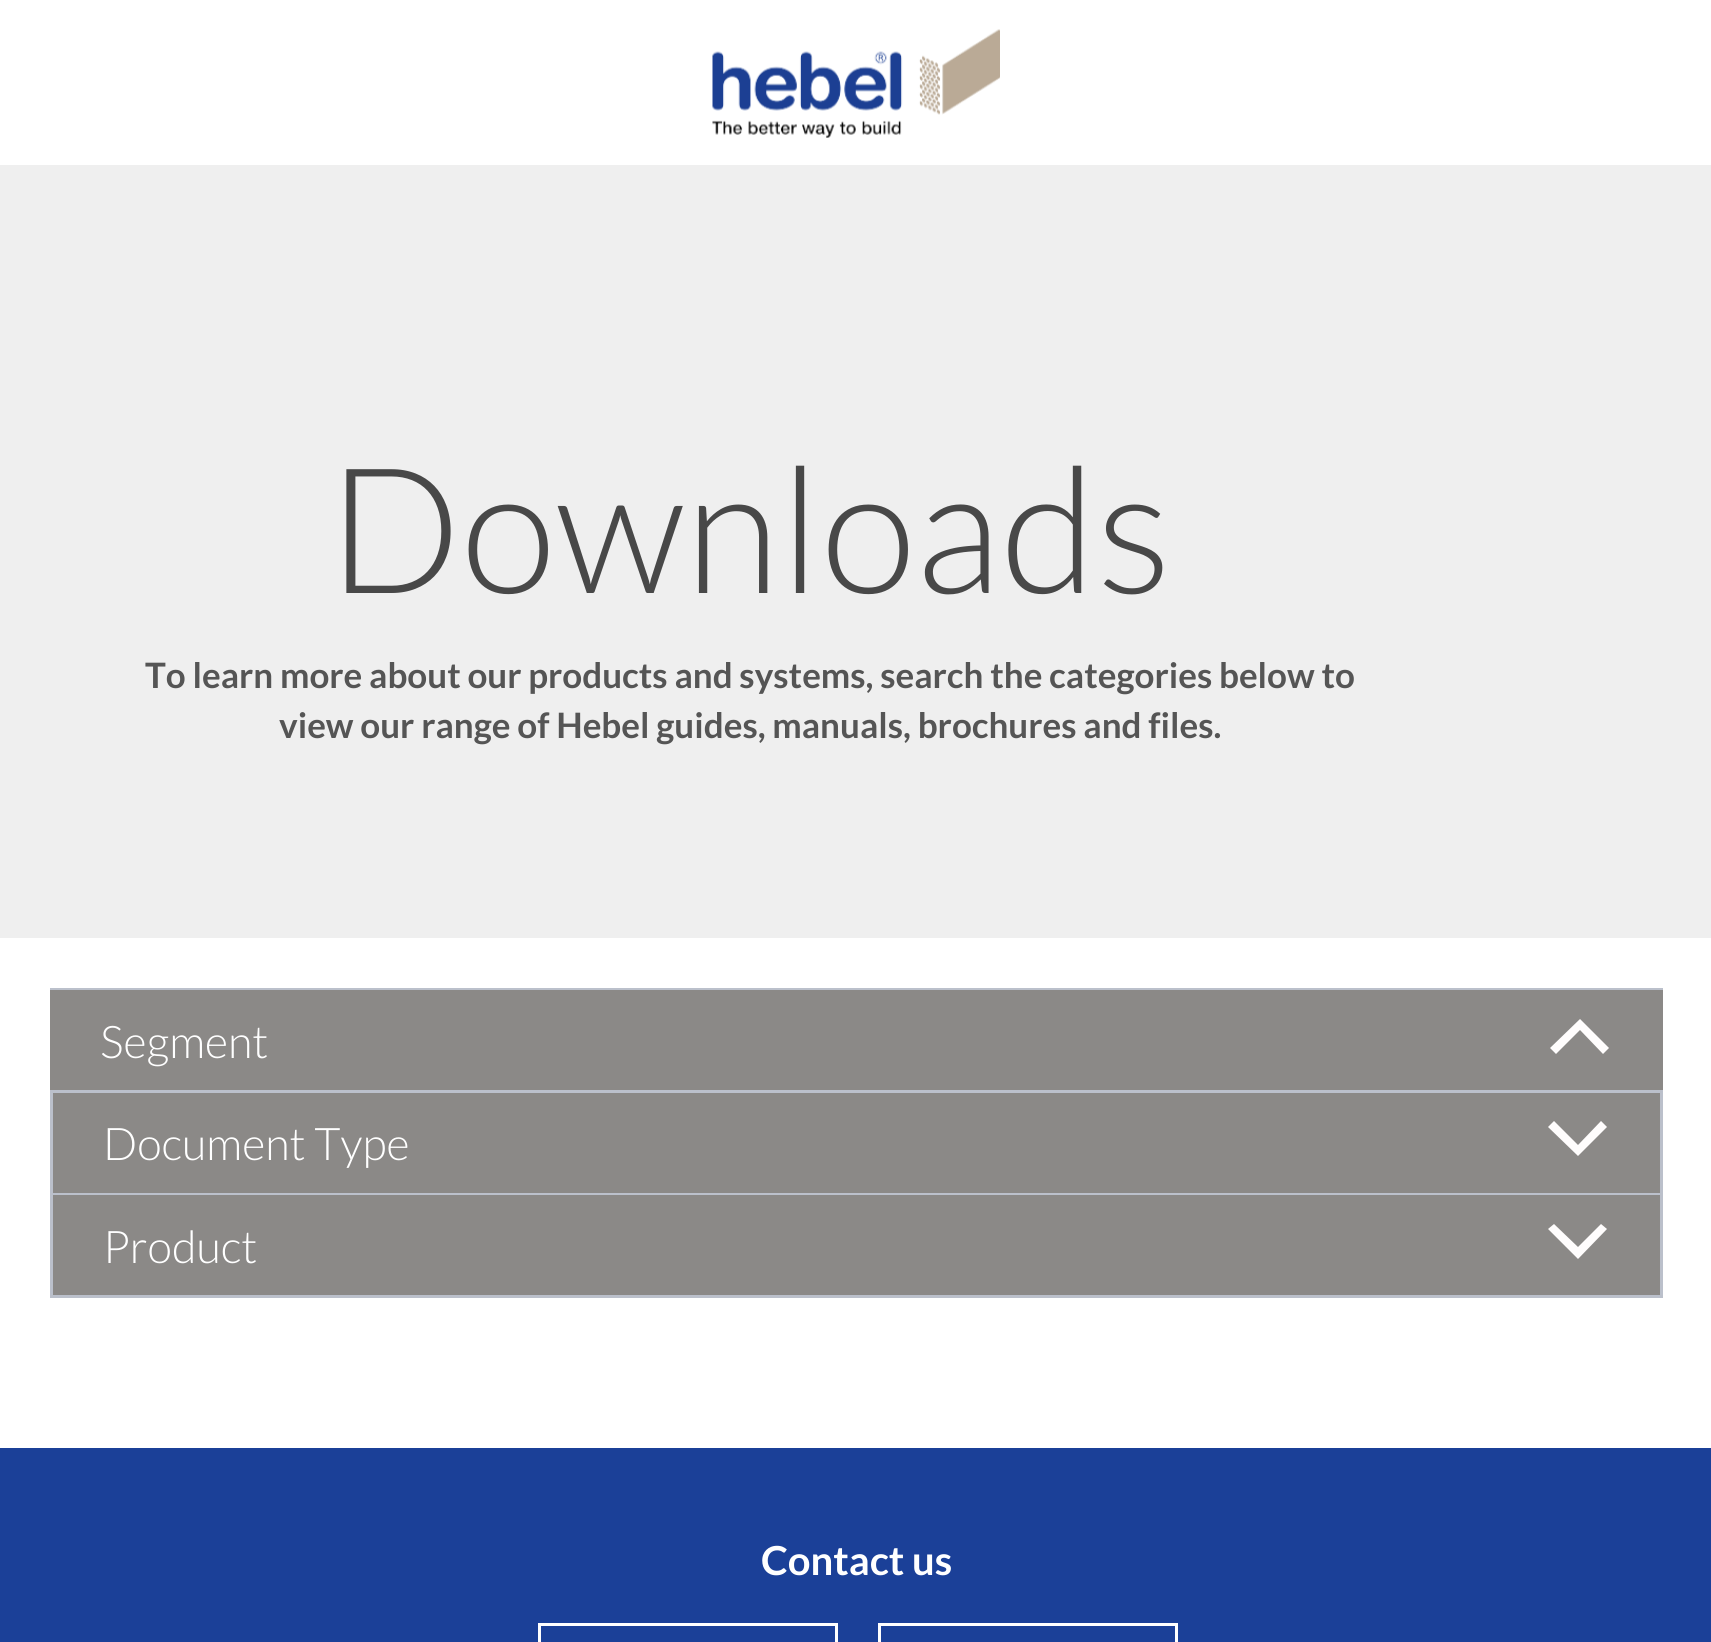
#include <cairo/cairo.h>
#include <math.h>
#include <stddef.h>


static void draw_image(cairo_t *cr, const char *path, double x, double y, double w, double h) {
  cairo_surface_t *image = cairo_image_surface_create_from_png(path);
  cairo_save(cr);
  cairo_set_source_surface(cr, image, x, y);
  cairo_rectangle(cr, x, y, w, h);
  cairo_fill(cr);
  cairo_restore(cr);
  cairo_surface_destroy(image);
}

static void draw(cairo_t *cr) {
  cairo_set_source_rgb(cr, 1, 1, 1);
  cairo_paint(cr);
  draw_image(cr, "images/1.png", 712, 29, 288, 109);
  cairo_set_source_rgb(cr, 239 / 255.0, 239 / 255.0, 239 / 255.0);
  cairo_rectangle(cr, 0, 165, 1711, 773);
  cairo_fill(cr);
  cairo_set_source_rgb(cr, 187 / 255.0, 192 / 255.0, 203 / 255.0);
  cairo_rectangle(cr, 50, 988, 1613, 2);
  cairo_fill(cr);
  cairo_set_source_rgb(cr, 139 / 255.0, 137 / 255.0, 135 / 255.0);
  cairo_rectangle(cr, 50, 990, 1613, 100);
  cairo_fill(cr);
  cairo_set_source_rgb(cr, 1, 253 / 255.0, 253 / 255.0);
  cairo_new_path(cr);
  cairo_move_to(cr, 1609, 1048);
  cairo_line_to(cr, 1603, 1054);
  cairo_line_to(cr, 1580, 1030);
  cairo_line_to(cr, 1556, 1054);
  cairo_line_to(cr, 1550, 1048);
  cairo_line_to(cr, 1580, 1019);
  cairo_close_path(cr);
  cairo_fill(cr);
  cairo_set_source_rgb(cr, 187 / 255.0, 192 / 255.0, 203 / 255.0);
  cairo_rectangle(cr, 50, 1090, 1613, 3);
  cairo_fill(cr);
  cairo_set_source_rgb(cr, 139 / 255.0, 137 / 255.0, 135 / 255.0);
  cairo_rectangle(cr, 53, 1093, 1607, 100);
  cairo_fill(cr);
  cairo_set_source_rgb(cr, 187 / 255.0, 192 / 255.0, 203 / 255.0);
  cairo_rectangle(cr, 1660, 1093, 3, 205);
  cairo_fill(cr);
  cairo_rectangle(cr, 50, 1193, 1613, 2);
  cairo_fill(cr);
  cairo_rectangle(cr, 50, 1093, 3, 102);
  cairo_fill(cr);
  cairo_set_source_rgb(cr, 1, 253 / 255.0, 253 / 255.0);
  cairo_new_path(cr);
  cairo_move_to(cr, 1548, 1127);
  cairo_line_to(cr, 1554, 1121);
  cairo_line_to(cr, 1578, 1145);
  cairo_line_to(cr, 1601, 1121);
  cairo_line_to(cr, 1607, 1127);
  cairo_line_to(cr, 1578, 1156);
  cairo_close_path(cr);
  cairo_fill(cr);
  cairo_set_source_rgb(cr, 139 / 255.0, 137 / 255.0, 135 / 255.0);
  cairo_rectangle(cr, 53, 1195, 1607, 100);
  cairo_fill(cr);
  cairo_set_source_rgb(cr, 187 / 255.0, 192 / 255.0, 203 / 255.0);
  cairo_rectangle(cr, 50, 1295, 1613, 3);
  cairo_fill(cr);
  cairo_rectangle(cr, 50, 1195, 3, 103);
  cairo_fill(cr);
  cairo_set_source_rgb(cr, 1, 253 / 255.0, 253 / 255.0);
  cairo_new_path(cr);
  cairo_move_to(cr, 1548, 1229);
  cairo_line_to(cr, 1554, 1224);
  cairo_line_to(cr, 1578, 1247);
  cairo_line_to(cr, 1601, 1224);
  cairo_line_to(cr, 1607, 1229);
  cairo_line_to(cr, 1578, 1259);
  cairo_close_path(cr);
  cairo_fill(cr);
  cairo_set_source_rgb(cr, 27 / 255.0, 64 / 255.0, 152 / 255.0);
  cairo_rectangle(cr, 0, 1448, 1711, 194);
  cairo_fill(cr);
  cairo_rectangle(cr, 539.5, 1624.5, 297, 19);
  cairo_set_source_rgb(cr, 1, 1, 1);
  cairo_set_line_width(cr, 3);
  cairo_stroke(cr);
  cairo_rectangle(cr, 879.5, 1624.5, 297, 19);
  cairo_stroke(cr);
  cairo_select_font_face(cr, "Lato Light", CAIRO_FONT_SLANT_NORMAL, CAIRO_FONT_WEIGHT_NORMAL);
  cairo_set_font_size(cr, 175);
  cairo_set_source_rgb(cr, 72 / 255.0, 72 / 255.0, 72 / 255.0);
  cairo_move_to(cr, 328, 593);
  cairo_show_text(cr, "Downloads");
  cairo_select_font_face(cr, "Lato", CAIRO_FONT_SLANT_NORMAL, CAIRO_FONT_WEIGHT_BOLD);
  cairo_set_font_size(cr, 35);
  cairo_set_source_rgb(cr, 85 / 255.0, 85 / 255.0, 85 / 255.0);
  cairo_move_to(cr, 145, 688);
  cairo_show_text(cr, "To learn more about our products and systems, search the categories below to");
  cairo_move_to(cr, 279, 738);
  cairo_show_text(cr, "view our range of Hebel guides, manuals, brochures and files.");
  cairo_select_font_face(cr, "Lato Light", CAIRO_FONT_SLANT_NORMAL, CAIRO_FONT_WEIGHT_NORMAL);
  cairo_set_font_size(cr, 45);
  cairo_set_source_rgb(cr, 1, 1, 1);
  cairo_move_to(cr, 100, 1058);
  cairo_show_text(cr, "Segment");
  cairo_move_to(cr, 103, 1160);
  cairo_show_text(cr, "Document Type");
  cairo_move_to(cr, 103, 1263);
  cairo_show_text(cr, "Product");
  cairo_select_font_face(cr, "Lato", CAIRO_FONT_SLANT_NORMAL, CAIRO_FONT_WEIGHT_BOLD);
  cairo_set_font_size(cr, 40);
  cairo_move_to(cr, 761, 1575);
  cairo_show_text(cr, "Contact us");
}

int main(void) {
  cairo_surface_t *surface = cairo_image_surface_create(CAIRO_FORMAT_RGB24, 1711, 1642);
  cairo_t *cr = cairo_create(surface);
  cairo_font_options_t *options = cairo_font_options_create();
  cairo_font_options_set_hint_metrics(options, CAIRO_HINT_METRICS_OFF);
  cairo_font_options_set_hint_style(options, CAIRO_HINT_STYLE_NONE);
  cairo_set_font_options(cr, options);
  cairo_set_miter_limit(cr, 4);
  draw(cr);
  cairo_surface_write_to_png(surface, "out.png");
  cairo_font_options_destroy(options);
  cairo_destroy(cr);
  cairo_surface_destroy(surface);
  return 0;
}
